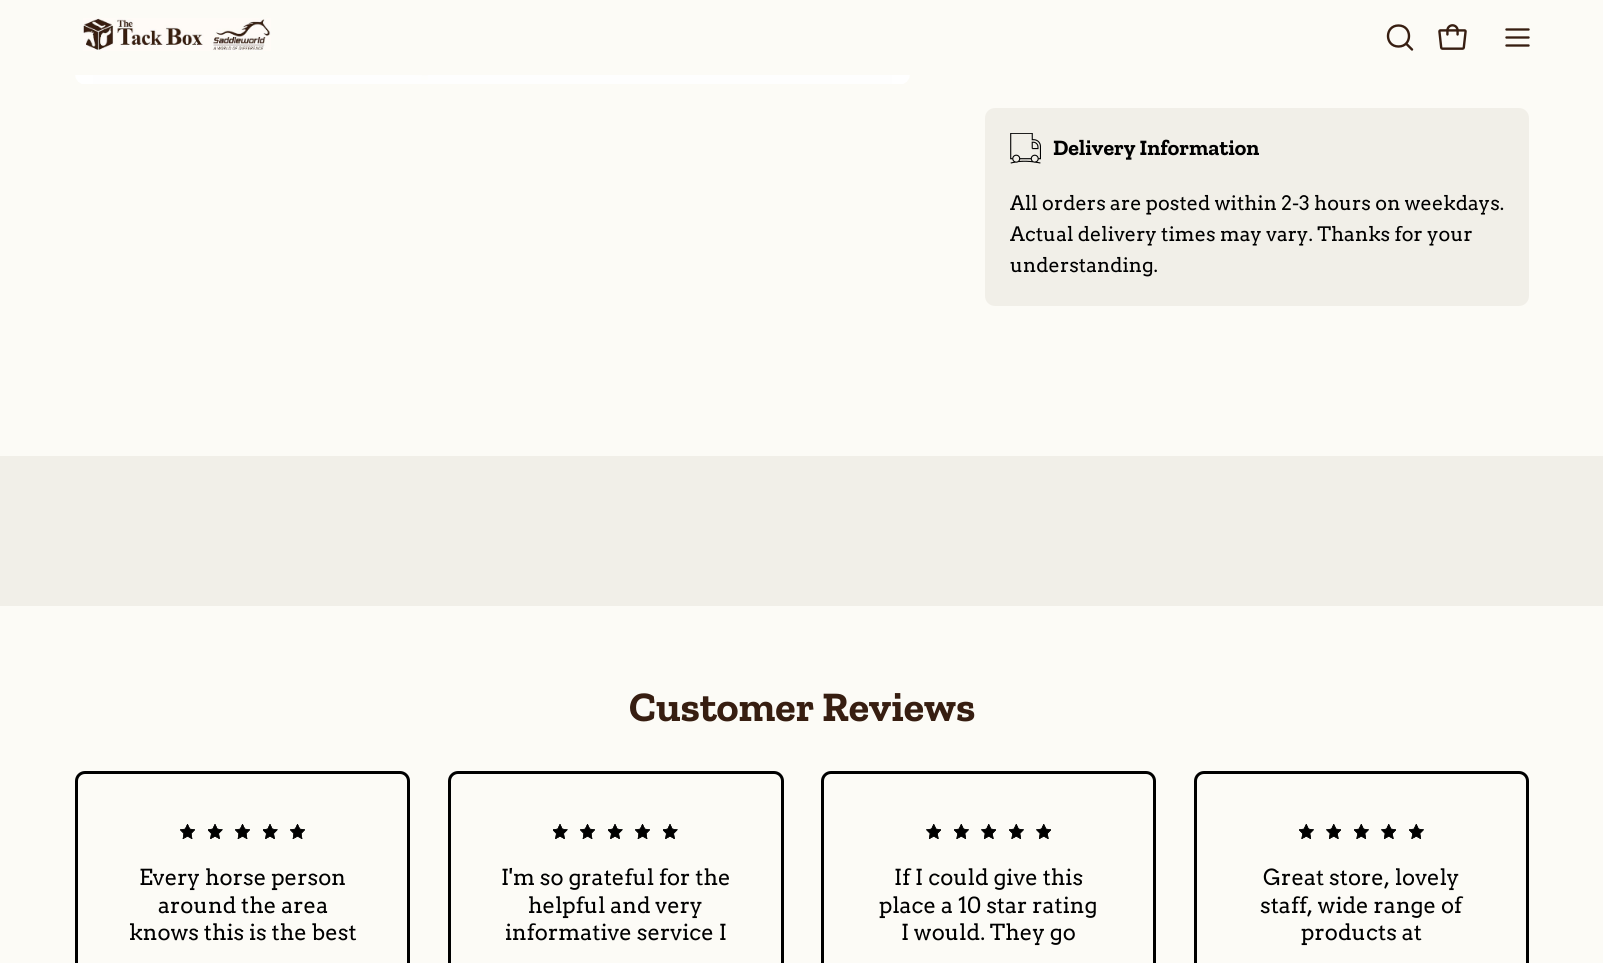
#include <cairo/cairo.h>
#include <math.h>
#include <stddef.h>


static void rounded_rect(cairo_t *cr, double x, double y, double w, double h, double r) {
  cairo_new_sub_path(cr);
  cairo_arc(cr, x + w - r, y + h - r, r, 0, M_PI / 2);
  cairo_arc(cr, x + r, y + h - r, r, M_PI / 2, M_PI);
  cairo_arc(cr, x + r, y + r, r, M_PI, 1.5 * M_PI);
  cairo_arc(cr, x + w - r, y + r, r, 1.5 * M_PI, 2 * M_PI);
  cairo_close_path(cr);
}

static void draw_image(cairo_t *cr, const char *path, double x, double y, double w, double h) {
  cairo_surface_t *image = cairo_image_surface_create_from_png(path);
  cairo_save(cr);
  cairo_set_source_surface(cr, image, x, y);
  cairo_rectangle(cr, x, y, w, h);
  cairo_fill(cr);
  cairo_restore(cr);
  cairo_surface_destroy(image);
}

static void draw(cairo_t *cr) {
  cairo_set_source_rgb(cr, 252 / 255.0, 251 / 255.0, 246 / 255.0);
  cairo_paint(cr);
  draw_image(cr, "images/1.png", 83, 18, 188, 33);
  cairo_new_path(cr);
  cairo_move_to(cr, 1398.5, 46.5);
  cairo_curve_to(cr, 1412.5, 46.5, 1412.5, 25.5, 1398.5, 25.5);
  cairo_curve_to(cr, 1384.5, 25.5, 1384.5, 46.5, 1398.5, 46.5);
  cairo_close_path(cr);
  cairo_move_to(cr, 1406, 43.5);
  cairo_line_to(cr, 1412, 49.5);
  cairo_set_source_rgb(cr, 55 / 255.0, 30 / 255.0, 17 / 255.0);
  cairo_set_line_width(cr, 2.4);
  cairo_set_line_cap(cr, CAIRO_LINE_CAP_ROUND);
  cairo_set_line_join(cr, CAIRO_LINE_JOIN_ROUND);
  cairo_stroke(cr);
  draw_image(cr, "images/2.png", 1438, 24, 29, 26);
  cairo_new_path(cr);
  cairo_move_to(cr, 1506.5, 37.5);
  cairo_line_to(cr, 1528.5, 37.5);
  cairo_move_to(cr, 1506.5, 29.5);
  cairo_line_to(cr, 1528.5, 29.5);
  cairo_move_to(cr, 1506.5, 45.5);
  cairo_line_to(cr, 1528.5, 45.5);
  cairo_stroke(cr);
  draw_image(cr, "images/3.png", 75, 75, 835, 9);
  cairo_set_source_rgb(cr, 241 / 255.0, 239 / 255.0, 232 / 255.0);
  rounded_rect(cr, 985, 108, 544, 198, 10);
  cairo_fill(cr);
  draw_image(cr, "images/4.png", 1010, 133, 31, 31);
  cairo_rectangle(cr, 0, 456, 1603, 150);
  cairo_fill(cr);
  rounded_rect(cr, 76.5, 772.5, 332, 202, 8.5);
  cairo_set_source_rgb(cr, 0, 0, 0);
  cairo_set_line_width(cr, 3);
  cairo_set_line_cap(cr, CAIRO_LINE_CAP_BUTT);
  cairo_set_line_join(cr, CAIRO_LINE_JOIN_MITER);
  cairo_stroke(cr);
  draw_image(cr, "images/5.png", 180, 824, 15, 15);
  draw_image(cr, "images/6.png", 208, 824, 15, 15);
  draw_image(cr, "images/5.png", 235, 824, 15, 15);
  draw_image(cr, "images/6.png", 263, 824, 15, 15);
  draw_image(cr, "images/5.png", 290, 824, 15, 15);
  draw_image(cr, "images/7.png", 180, 824, 15, 15);
  draw_image(cr, "images/8.png", 208, 824, 15, 15);
  draw_image(cr, "images/7.png", 235, 824, 15, 15);
  draw_image(cr, "images/8.png", 263, 824, 15, 15);
  draw_image(cr, "images/7.png", 290, 824, 15, 15);
  rounded_rect(cr, 449.5, 772.5, 333, 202, 8.5);
  cairo_stroke(cr);
  draw_image(cr, "images/6.png", 553, 824, 15, 15);
  draw_image(cr, "images/5.png", 580, 824, 15, 15);
  draw_image(cr, "images/6.png", 608, 824, 15, 15);
  draw_image(cr, "images/5.png", 635, 824, 15, 15);
  draw_image(cr, "images/6.png", 663, 824, 15, 15);
  draw_image(cr, "images/8.png", 553, 824, 15, 15);
  draw_image(cr, "images/7.png", 580, 824, 15, 15);
  draw_image(cr, "images/8.png", 608, 824, 15, 15);
  draw_image(cr, "images/7.png", 635, 824, 15, 15);
  draw_image(cr, "images/8.png", 663, 824, 15, 15);
  rounded_rect(cr, 822.5, 772.5, 332, 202, 8.5);
  cairo_stroke(cr);
  draw_image(cr, "images/9.png", 926, 824, 15, 15);
  draw_image(cr, "images/10.png", 954, 824, 15, 15);
  draw_image(cr, "images/9.png", 981, 824, 15, 15);
  draw_image(cr, "images/10.png", 1009, 824, 15, 15);
  draw_image(cr, "images/9.png", 1036, 824, 15, 15);
  draw_image(cr, "images/11.png", 926, 824, 15, 15);
  draw_image(cr, "images/12.png", 954, 824, 15, 15);
  draw_image(cr, "images/11.png", 981, 824, 15, 15);
  draw_image(cr, "images/12.png", 1009, 824, 15, 15);
  draw_image(cr, "images/11.png", 1036, 824, 15, 15);
  rounded_rect(cr, 1195.5, 772.5, 332, 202, 8.5);
  cairo_stroke(cr);
  draw_image(cr, "images/10.png", 1299, 824, 15, 15);
  draw_image(cr, "images/9.png", 1326, 824, 15, 15);
  draw_image(cr, "images/10.png", 1354, 824, 15, 15);
  draw_image(cr, "images/9.png", 1381, 824, 15, 15);
  draw_image(cr, "images/10.png", 1409, 824, 15, 15);
  draw_image(cr, "images/12.png", 1299, 824, 15, 15);
  draw_image(cr, "images/11.png", 1326, 824, 15, 15);
  draw_image(cr, "images/12.png", 1354, 824, 15, 15);
  draw_image(cr, "images/11.png", 1381, 824, 15, 15);
  draw_image(cr, "images/12.png", 1409, 824, 15, 15);
  cairo_select_font_face(cr, "Zilla Slab", CAIRO_FONT_SLANT_NORMAL, CAIRO_FONT_WEIGHT_BOLD);
  cairo_set_font_size(cr, 22);
  cairo_move_to(cr, 1053, 155);
  cairo_show_text(cr, "Delivery Information");
  cairo_select_font_face(cr, "Arvo", CAIRO_FONT_SLANT_NORMAL, CAIRO_FONT_WEIGHT_NORMAL);
  cairo_set_font_size(cr, 19.8);
  cairo_move_to(cr, 1010, 210);
  cairo_show_text(cr, "All orders are posted within 2-3 hours on weekdays.");
  cairo_move_to(cr, 1010, 241);
  cairo_show_text(cr, "Actual delivery times may vary. Thanks for your");
  cairo_move_to(cr, 1010, 272);
  cairo_show_text(cr, "understanding.");
  cairo_select_font_face(cr, "Zilla Slab", CAIRO_FONT_SLANT_NORMAL, CAIRO_FONT_WEIGHT_BOLD);
  cairo_set_font_size(cr, 42);
  cairo_set_source_rgb(cr, 55 / 255.0, 30 / 255.0, 17 / 255.0);
  cairo_move_to(cr, 629, 721);
  cairo_show_text(cr, "Customer Reviews");
  cairo_select_font_face(cr, "Arvo", CAIRO_FONT_SLANT_NORMAL, CAIRO_FONT_WEIGHT_NORMAL);
  cairo_set_font_size(cr, 22);
  cairo_set_source_rgb(cr, 0, 0, 0);
  cairo_move_to(cr, 139, 885);
  cairo_show_text(cr, "Every horse person");
  cairo_move_to(cr, 158, 913);
  cairo_show_text(cr, "around the area");
  cairo_move_to(cr, 129, 940);
  cairo_show_text(cr, "knows this is the best");
  cairo_move_to(cr, 501, 885);
  cairo_show_text(cr, "I'm so grateful for the");
  cairo_move_to(cr, 528, 913);
  cairo_show_text(cr, "helpful and very");
  cairo_move_to(cr, 505, 940);
  cairo_show_text(cr, "informative service I");
  cairo_move_to(cr, 894, 885);
  cairo_show_text(cr, "If I could give this");
  cairo_move_to(cr, 879, 913);
  cairo_show_text(cr, "place a 10 star rating");
  cairo_move_to(cr, 901, 940);
  cairo_show_text(cr, "I would. They go");
  cairo_move_to(cr, 1263, 885);
  cairo_show_text(cr, "Great store, lovely");
  cairo_move_to(cr, 1260, 913);
  cairo_show_text(cr, "staff, wide range of");
  cairo_move_to(cr, 1301, 940);
  cairo_show_text(cr, "products at");
}

int main(void) {
  cairo_surface_t *surface = cairo_image_surface_create(CAIRO_FORMAT_RGB24, 1603, 963);
  cairo_t *cr = cairo_create(surface);
  cairo_font_options_t *options = cairo_font_options_create();
  cairo_font_options_set_hint_metrics(options, CAIRO_HINT_METRICS_OFF);
  cairo_font_options_set_hint_style(options, CAIRO_HINT_STYLE_NONE);
  cairo_set_font_options(cr, options);
  cairo_set_miter_limit(cr, 4);
  draw(cr);
  cairo_surface_write_to_png(surface, "out.png");
  cairo_font_options_destroy(options);
  cairo_destroy(cr);
  cairo_surface_destroy(surface);
  return 0;
}
